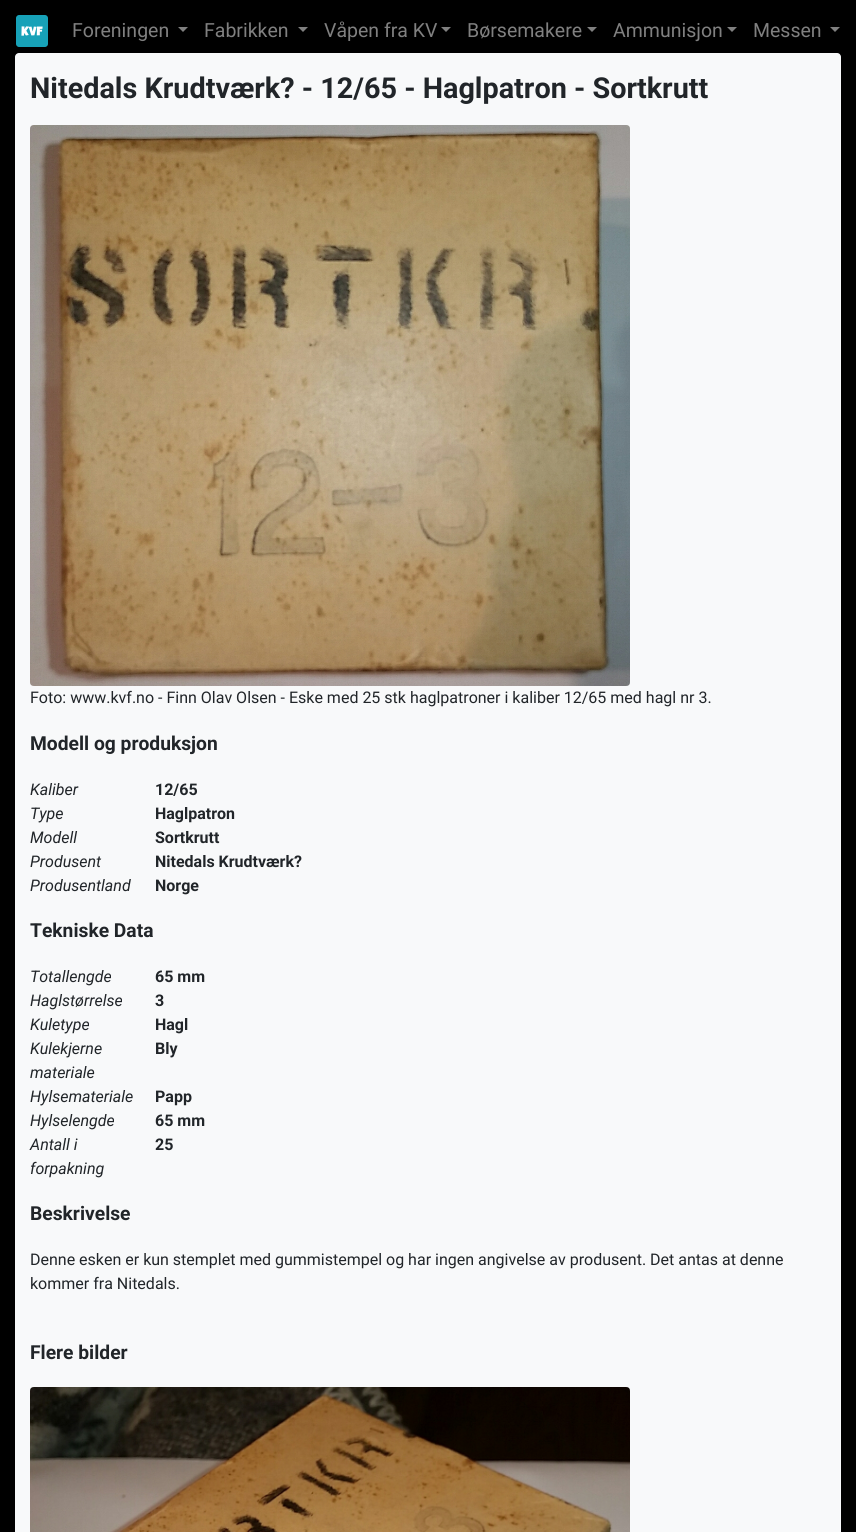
#include <cairo/cairo.h>
#include <math.h>
#include <stddef.h>


static void rounded_rect(cairo_t *cr, double x, double y, double w, double h, double r) {
  cairo_new_sub_path(cr);
  cairo_arc(cr, x + w - r, y + h - r, r, 0, M_PI / 2);
  cairo_arc(cr, x + r, y + h - r, r, M_PI / 2, M_PI);
  cairo_arc(cr, x + r, y + r, r, M_PI, 1.5 * M_PI);
  cairo_arc(cr, x + w - r, y + r, r, 1.5 * M_PI, 2 * M_PI);
  cairo_close_path(cr);
}

static void draw_image(cairo_t *cr, const char *path, double x, double y, double w, double h) {
  cairo_surface_t *image = cairo_image_surface_create_from_png(path);
  cairo_save(cr);
  cairo_set_source_surface(cr, image, x, y);
  cairo_rectangle(cr, x, y, w, h);
  cairo_fill(cr);
  cairo_restore(cr);
  cairo_surface_destroy(image);
}

static void draw(cairo_t *cr) {
  cairo_set_source_rgb(cr, 0, 0, 0);
  cairo_paint(cr);
  draw_image(cr, "images/1.png", 16, 15, 32, 32);
  cairo_set_source_rgb(cr, 128 / 255.0, 128 / 255.0, 128 / 255.0);
  cairo_new_path(cr);
  cairo_move_to(cr, 178, 27);
  cairo_line_to(cr, 188, 27);
  cairo_line_to(cr, 183, 32);
  cairo_close_path(cr);
  cairo_fill(cr);
  cairo_new_path(cr);
  cairo_move_to(cr, 298, 27);
  cairo_line_to(cr, 308, 27);
  cairo_line_to(cr, 303, 32);
  cairo_close_path(cr);
  cairo_fill(cr);
  cairo_new_path(cr);
  cairo_move_to(cr, 441, 27);
  cairo_line_to(cr, 451, 27);
  cairo_line_to(cr, 446, 32);
  cairo_close_path(cr);
  cairo_fill(cr);
  cairo_new_path(cr);
  cairo_move_to(cr, 587, 27);
  cairo_line_to(cr, 597, 27);
  cairo_line_to(cr, 592, 32);
  cairo_close_path(cr);
  cairo_fill(cr);
  cairo_new_path(cr);
  cairo_move_to(cr, 727, 27);
  cairo_line_to(cr, 737, 27);
  cairo_line_to(cr, 732, 32);
  cairo_close_path(cr);
  cairo_fill(cr);
  cairo_new_path(cr);
  cairo_move_to(cr, 830, 27);
  cairo_line_to(cr, 840, 27);
  cairo_line_to(cr, 835, 32);
  cairo_close_path(cr);
  cairo_fill(cr);
  cairo_set_source_rgb(cr, 248 / 255.0, 249 / 255.0, 250 / 255.0);
  rounded_rect(cr, 15, 53, 826, 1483, 4);
  cairo_fill(cr);
  draw_image(cr, "images/2.png", 30, 125, 600, 561);
  draw_image(cr, "images/3.png", 30, 1387, 600, 145);
  cairo_select_font_face(cr, "Roboto", CAIRO_FONT_SLANT_NORMAL, CAIRO_FONT_WEIGHT_NORMAL);
  cairo_set_font_size(cr, 19.5);
  cairo_set_source_rgb(cr, 128 / 255.0, 128 / 255.0, 128 / 255.0);
  cairo_move_to(cr, 72, 37);
  cairo_show_text(cr, "Foreningen");
  cairo_move_to(cr, 204, 37);
  cairo_show_text(cr, "Fabrikken");
  cairo_move_to(cr, 324, 37);
  cairo_show_text(cr, "Våpen fra KV");
  cairo_move_to(cr, 467, 37);
  cairo_show_text(cr, "Børsemakere");
  cairo_move_to(cr, 613, 37);
  cairo_show_text(cr, "Ammunisjon");
  cairo_move_to(cr, 753, 37);
  cairo_show_text(cr, "Messen");
  cairo_select_font_face(cr, "Roboto", CAIRO_FONT_SLANT_NORMAL, CAIRO_FONT_WEIGHT_BOLD);
  cairo_set_font_size(cr, 28.8);
  cairo_set_source_rgb(cr, 33 / 255.0, 37 / 255.0, 41 / 255.0);
  cairo_move_to(cr, 30, 98);
  cairo_show_text(cr, "Nitedals Krudtværk? - 12/65 - Haglpatron - Sortkrutt");
  cairo_select_font_face(cr, "Roboto", CAIRO_FONT_SLANT_NORMAL, CAIRO_FONT_WEIGHT_NORMAL);
  cairo_set_font_size(cr, 16);
  cairo_move_to(cr, 30, 703);
  cairo_show_text(cr, "Foto: www.kvf.no - Finn Olav Olsen - Eske med 25 stk haglpatroner i kaliber 12/65 med hagl nr 3.");
  cairo_select_font_face(cr, "Roboto", CAIRO_FONT_SLANT_NORMAL, CAIRO_FONT_WEIGHT_BOLD);
  cairo_set_font_size(cr, 19.25);
  cairo_move_to(cr, 30, 750);
  cairo_show_text(cr, "Modell og produksjon");
  cairo_select_font_face(cr, "Roboto", CAIRO_FONT_SLANT_ITALIC, CAIRO_FONT_WEIGHT_NORMAL);
  cairo_set_font_size(cr, 16);
  cairo_move_to(cr, 30, 795);
  cairo_show_text(cr, "Kaliber");
  cairo_select_font_face(cr, "Roboto", CAIRO_FONT_SLANT_NORMAL, CAIRO_FONT_WEIGHT_BOLD);
  cairo_move_to(cr, 155, 795);
  cairo_show_text(cr, "12/65");
  cairo_select_font_face(cr, "Roboto", CAIRO_FONT_SLANT_ITALIC, CAIRO_FONT_WEIGHT_NORMAL);
  cairo_move_to(cr, 30, 819);
  cairo_show_text(cr, "Type");
  cairo_select_font_face(cr, "Roboto", CAIRO_FONT_SLANT_NORMAL, CAIRO_FONT_WEIGHT_BOLD);
  cairo_move_to(cr, 155, 819);
  cairo_show_text(cr, "Haglpatron");
  cairo_select_font_face(cr, "Roboto", CAIRO_FONT_SLANT_ITALIC, CAIRO_FONT_WEIGHT_NORMAL);
  cairo_move_to(cr, 30, 843);
  cairo_show_text(cr, "Modell");
  cairo_select_font_face(cr, "Roboto", CAIRO_FONT_SLANT_NORMAL, CAIRO_FONT_WEIGHT_BOLD);
  cairo_move_to(cr, 155, 843);
  cairo_show_text(cr, "Sortkrutt");
  cairo_select_font_face(cr, "Roboto", CAIRO_FONT_SLANT_ITALIC, CAIRO_FONT_WEIGHT_NORMAL);
  cairo_move_to(cr, 30, 867);
  cairo_show_text(cr, "Produsent");
  cairo_select_font_face(cr, "Roboto", CAIRO_FONT_SLANT_NORMAL, CAIRO_FONT_WEIGHT_BOLD);
  cairo_move_to(cr, 155, 867);
  cairo_show_text(cr, "Nitedals Krudtværk?");
  cairo_select_font_face(cr, "Roboto", CAIRO_FONT_SLANT_ITALIC, CAIRO_FONT_WEIGHT_NORMAL);
  cairo_move_to(cr, 30, 891);
  cairo_show_text(cr, "Produsentland");
  cairo_select_font_face(cr, "Roboto", CAIRO_FONT_SLANT_NORMAL, CAIRO_FONT_WEIGHT_BOLD);
  cairo_move_to(cr, 155, 891);
  cairo_show_text(cr, "Norge");
  cairo_set_font_size(cr, 19.25);
  cairo_move_to(cr, 30, 937);
  cairo_show_text(cr, "Tekniske Data");
  cairo_select_font_face(cr, "Roboto", CAIRO_FONT_SLANT_ITALIC, CAIRO_FONT_WEIGHT_NORMAL);
  cairo_set_font_size(cr, 16);
  cairo_move_to(cr, 30, 982);
  cairo_show_text(cr, "Totallengde");
  cairo_select_font_face(cr, "Roboto", CAIRO_FONT_SLANT_NORMAL, CAIRO_FONT_WEIGHT_BOLD);
  cairo_move_to(cr, 155, 982);
  cairo_show_text(cr, "65 mm");
  cairo_select_font_face(cr, "Roboto", CAIRO_FONT_SLANT_ITALIC, CAIRO_FONT_WEIGHT_NORMAL);
  cairo_move_to(cr, 30, 1006);
  cairo_show_text(cr, "Haglstørrelse");
  cairo_select_font_face(cr, "Roboto", CAIRO_FONT_SLANT_NORMAL, CAIRO_FONT_WEIGHT_BOLD);
  cairo_move_to(cr, 155, 1006);
  cairo_show_text(cr, "3");
  cairo_select_font_face(cr, "Roboto", CAIRO_FONT_SLANT_ITALIC, CAIRO_FONT_WEIGHT_NORMAL);
  cairo_move_to(cr, 30, 1030);
  cairo_show_text(cr, "Kuletype");
  cairo_select_font_face(cr, "Roboto", CAIRO_FONT_SLANT_NORMAL, CAIRO_FONT_WEIGHT_BOLD);
  cairo_move_to(cr, 155, 1030);
  cairo_show_text(cr, "Hagl");
  cairo_select_font_face(cr, "Roboto", CAIRO_FONT_SLANT_ITALIC, CAIRO_FONT_WEIGHT_NORMAL);
  cairo_move_to(cr, 30, 1054);
  cairo_show_text(cr, "Kulekjerne");
  cairo_move_to(cr, 30, 1078);
  cairo_show_text(cr, "materiale");
  cairo_select_font_face(cr, "Roboto", CAIRO_FONT_SLANT_NORMAL, CAIRO_FONT_WEIGHT_BOLD);
  cairo_move_to(cr, 155, 1054);
  cairo_show_text(cr, "Bly");
  cairo_select_font_face(cr, "Roboto", CAIRO_FONT_SLANT_ITALIC, CAIRO_FONT_WEIGHT_NORMAL);
  cairo_move_to(cr, 30, 1102);
  cairo_show_text(cr, "Hylsemateriale");
  cairo_select_font_face(cr, "Roboto", CAIRO_FONT_SLANT_NORMAL, CAIRO_FONT_WEIGHT_BOLD);
  cairo_move_to(cr, 155, 1102);
  cairo_show_text(cr, "Papp");
  cairo_select_font_face(cr, "Roboto", CAIRO_FONT_SLANT_ITALIC, CAIRO_FONT_WEIGHT_NORMAL);
  cairo_move_to(cr, 30, 1126);
  cairo_show_text(cr, "Hylselengde");
  cairo_select_font_face(cr, "Roboto", CAIRO_FONT_SLANT_NORMAL, CAIRO_FONT_WEIGHT_BOLD);
  cairo_move_to(cr, 155, 1126);
  cairo_show_text(cr, "65 mm");
  cairo_select_font_face(cr, "Roboto", CAIRO_FONT_SLANT_ITALIC, CAIRO_FONT_WEIGHT_NORMAL);
  cairo_move_to(cr, 30, 1150);
  cairo_show_text(cr, "Antall i");
  cairo_move_to(cr, 30, 1174);
  cairo_show_text(cr, "forpakning");
  cairo_select_font_face(cr, "Roboto", CAIRO_FONT_SLANT_NORMAL, CAIRO_FONT_WEIGHT_BOLD);
  cairo_move_to(cr, 155, 1150);
  cairo_show_text(cr, "25");
  cairo_set_font_size(cr, 19.25);
  cairo_move_to(cr, 30, 1220);
  cairo_show_text(cr, "Beskrivelse");
  cairo_select_font_face(cr, "Roboto", CAIRO_FONT_SLANT_NORMAL, CAIRO_FONT_WEIGHT_NORMAL);
  cairo_set_font_size(cr, 16);
  cairo_move_to(cr, 30, 1265);
  cairo_show_text(cr, "Denne esken er kun stemplet med gummistempel og har ingen angivelse av produsent. Det antas at denne");
  cairo_move_to(cr, 30, 1289);
  cairo_show_text(cr, "kommer fra Nitedals.");
  cairo_select_font_face(cr, "Roboto", CAIRO_FONT_SLANT_NORMAL, CAIRO_FONT_WEIGHT_BOLD);
  cairo_set_font_size(cr, 19.25);
  cairo_move_to(cr, 30, 1359);
  cairo_show_text(cr, "Flere bilder");
}

int main(void) {
  cairo_surface_t *surface = cairo_image_surface_create(CAIRO_FORMAT_RGB24, 856, 1532);
  cairo_t *cr = cairo_create(surface);
  cairo_font_options_t *options = cairo_font_options_create();
  cairo_font_options_set_hint_metrics(options, CAIRO_HINT_METRICS_OFF);
  cairo_font_options_set_hint_style(options, CAIRO_HINT_STYLE_NONE);
  cairo_set_font_options(cr, options);
  cairo_set_miter_limit(cr, 4);
  draw(cr);
  cairo_surface_write_to_png(surface, "out.png");
  cairo_font_options_destroy(options);
  cairo_destroy(cr);
  cairo_surface_destroy(surface);
  return 0;
}
